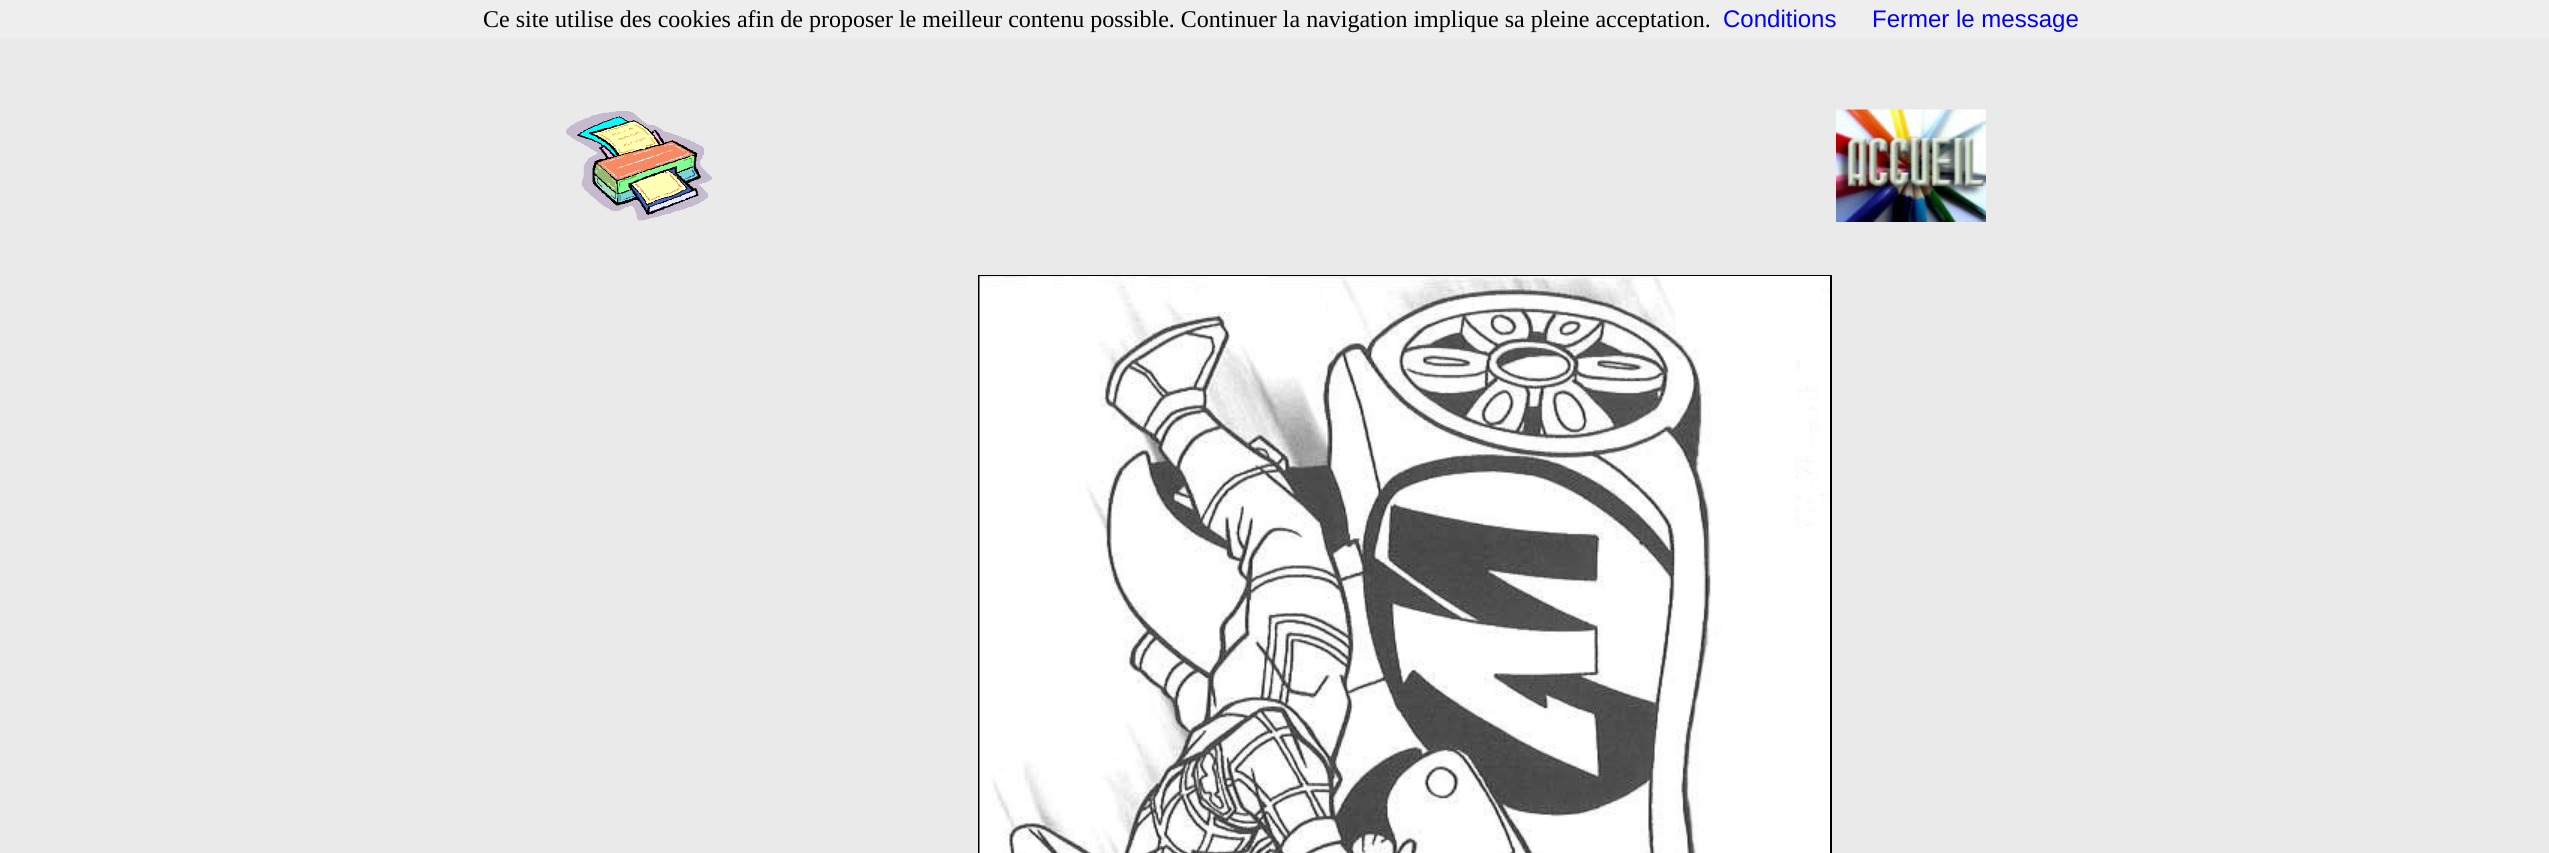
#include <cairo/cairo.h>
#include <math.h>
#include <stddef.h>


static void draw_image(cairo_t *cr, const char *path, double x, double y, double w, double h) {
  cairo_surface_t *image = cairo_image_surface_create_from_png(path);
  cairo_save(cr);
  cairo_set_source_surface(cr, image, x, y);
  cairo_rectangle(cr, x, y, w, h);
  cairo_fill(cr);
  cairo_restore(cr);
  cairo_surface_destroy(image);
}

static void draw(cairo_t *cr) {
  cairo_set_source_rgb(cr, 234 / 255.0, 234 / 255.0, 234 / 255.0);
  cairo_paint(cr);
  cairo_set_source_rgb(cr, 238 / 255.0, 238 / 255.0, 238 / 255.0);
  cairo_rectangle(cr, 0, 0, 2549, 39);
  cairo_fill(cr);
  draw_image(cr, "images/1.png", 566, 111, 146, 110);
  draw_image(cr, "images/2.png", 1836, 109, 150, 113);
  cairo_rectangle(cr, 979, 276, 852, 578);
  cairo_set_source_rgb(cr, 0, 0, 0);
  cairo_stroke(cr);
  draw_image(cr, "images/3.png", 979, 276, 851, 577);
  cairo_select_font_face(cr, "Liberation Serif", CAIRO_FONT_SLANT_NORMAL, CAIRO_FONT_WEIGHT_NORMAL);
  cairo_set_font_size(cr, 24);
  cairo_move_to(cr, 483, 27);
  cairo_show_text(cr, "Ce site utilise des cookies afin de proposer le meilleur contenu possible. Continuer la navigation implique sa pleine acceptation.");
  cairo_select_font_face(cr, "Liberation Sans", CAIRO_FONT_SLANT_NORMAL, CAIRO_FONT_WEIGHT_NORMAL);
  cairo_set_source_rgb(cr, 0, 0, 1);
  cairo_move_to(cr, 1723, 27);
  cairo_show_text(cr, "Conditions");
  cairo_move_to(cr, 1872, 27);
  cairo_show_text(cr, "Fermer le message");
}

int main(void) {
  cairo_surface_t *surface = cairo_image_surface_create(CAIRO_FORMAT_RGB24, 2549, 853);
  cairo_t *cr = cairo_create(surface);
  cairo_font_options_t *options = cairo_font_options_create();
  cairo_font_options_set_hint_metrics(options, CAIRO_HINT_METRICS_OFF);
  cairo_font_options_set_hint_style(options, CAIRO_HINT_STYLE_NONE);
  cairo_set_font_options(cr, options);
  cairo_set_miter_limit(cr, 4);
  draw(cr);
  cairo_surface_write_to_png(surface, "out.png");
  cairo_font_options_destroy(options);
  cairo_destroy(cr);
  cairo_surface_destroy(surface);
  return 0;
}
